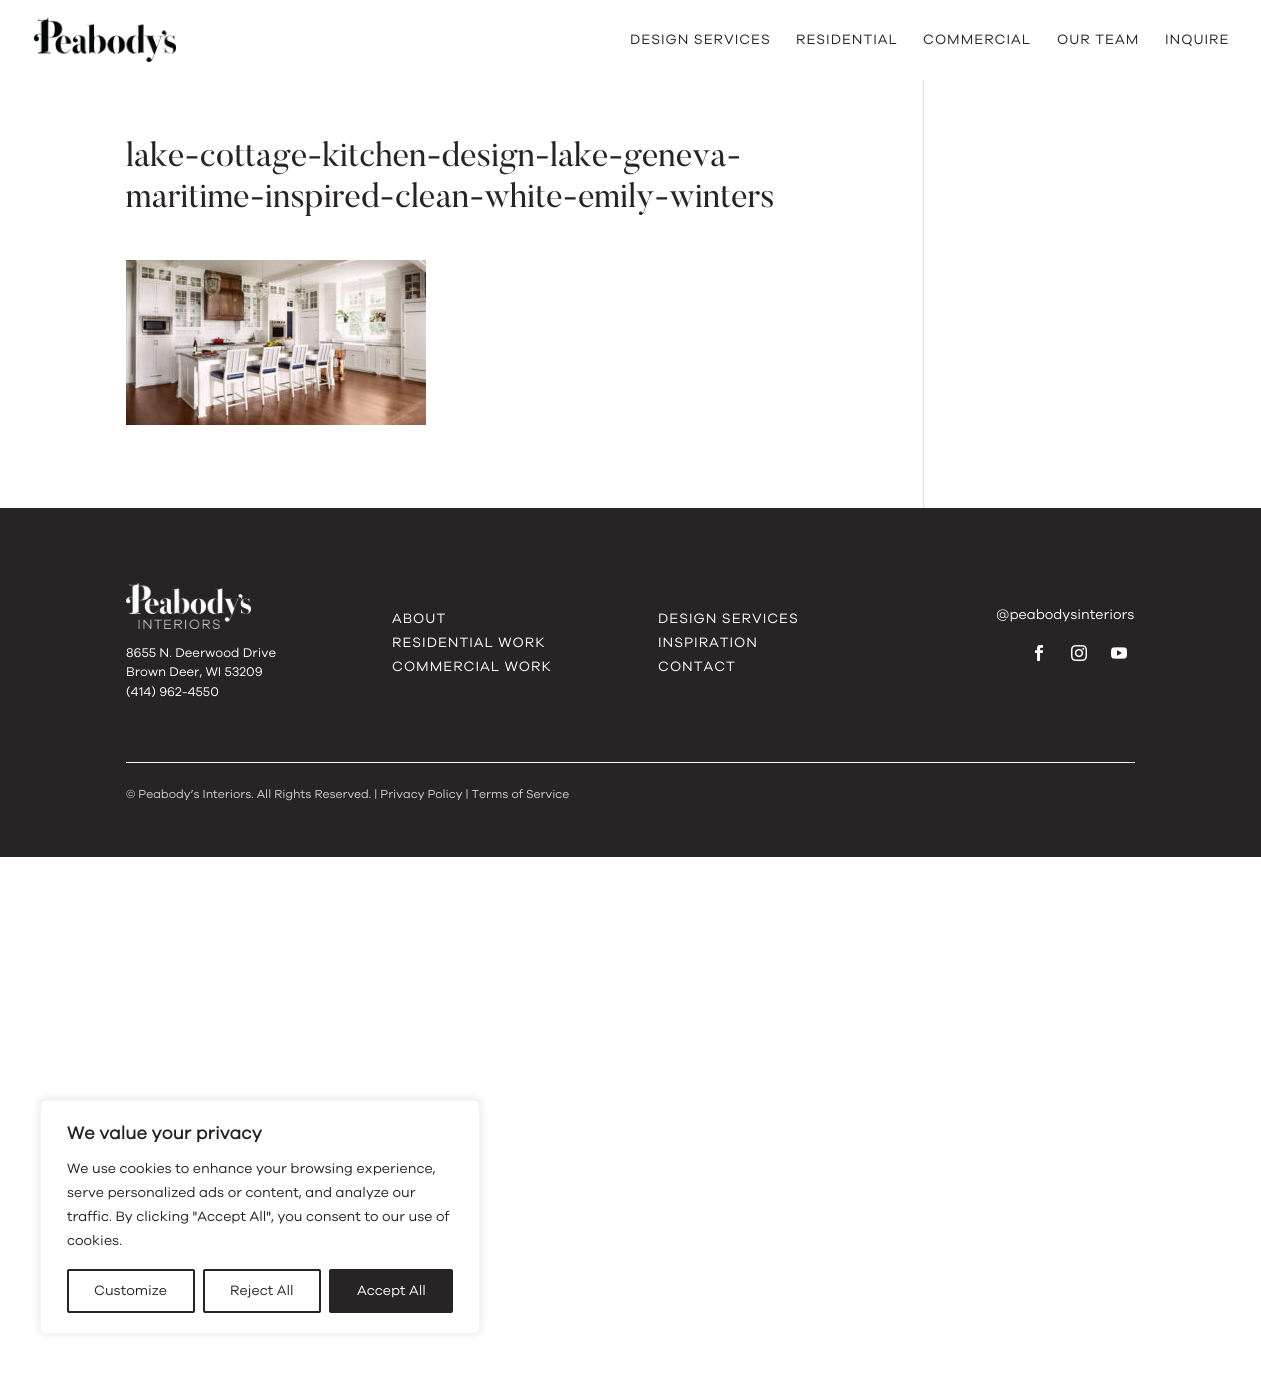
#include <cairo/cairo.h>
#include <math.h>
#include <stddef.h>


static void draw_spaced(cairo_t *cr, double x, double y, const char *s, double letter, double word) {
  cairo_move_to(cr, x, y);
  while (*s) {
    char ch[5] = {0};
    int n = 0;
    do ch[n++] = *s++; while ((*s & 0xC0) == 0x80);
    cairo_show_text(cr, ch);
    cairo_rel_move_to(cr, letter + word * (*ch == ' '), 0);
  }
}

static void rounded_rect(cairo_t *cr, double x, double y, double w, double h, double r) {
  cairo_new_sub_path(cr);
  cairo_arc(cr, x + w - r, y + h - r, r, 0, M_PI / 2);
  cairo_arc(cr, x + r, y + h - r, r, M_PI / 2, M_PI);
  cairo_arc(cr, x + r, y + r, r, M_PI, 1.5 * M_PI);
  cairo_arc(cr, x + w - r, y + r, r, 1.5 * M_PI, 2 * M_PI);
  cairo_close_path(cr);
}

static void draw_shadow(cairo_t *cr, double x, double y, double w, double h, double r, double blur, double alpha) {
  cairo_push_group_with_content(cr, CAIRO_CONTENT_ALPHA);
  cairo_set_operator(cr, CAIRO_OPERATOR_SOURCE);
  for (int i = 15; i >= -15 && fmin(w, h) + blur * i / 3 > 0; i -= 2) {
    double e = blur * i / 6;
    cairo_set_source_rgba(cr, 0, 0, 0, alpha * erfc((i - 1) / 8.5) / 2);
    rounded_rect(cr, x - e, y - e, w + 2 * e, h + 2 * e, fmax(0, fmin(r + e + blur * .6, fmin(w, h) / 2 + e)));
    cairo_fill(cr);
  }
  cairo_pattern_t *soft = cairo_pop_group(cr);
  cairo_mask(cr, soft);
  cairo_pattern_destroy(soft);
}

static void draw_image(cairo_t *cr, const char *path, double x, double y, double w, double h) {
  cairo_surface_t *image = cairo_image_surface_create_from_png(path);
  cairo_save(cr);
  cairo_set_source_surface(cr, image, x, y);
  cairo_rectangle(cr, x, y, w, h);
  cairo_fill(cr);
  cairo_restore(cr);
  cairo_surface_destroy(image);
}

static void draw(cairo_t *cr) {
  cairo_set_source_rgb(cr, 1, 1, 1);
  cairo_paint(cr);
  draw_image(cr, "images/1.png", 34, 18, 142, 44);
  draw_image(cr, "images/2.png", 126, 260, 300, 165);
  cairo_set_source_rgb(cr, 226 / 255.0, 226 / 255.0, 226 / 255.0);
  cairo_rectangle(cr, 923, 80, 1, 428);
  cairo_fill(cr);
  cairo_set_source_rgb(cr, 40 / 255.0, 36 / 255.0, 37 / 255.0);
  cairo_rectangle(cr, 0, 508, 1261, 349);
  cairo_fill(cr);
  draw_image(cr, "images/3.png", 126, 583, 125, 46);
  draw_image(cr, "images/4.png", 1035, 645, 8, 16);
  draw_image(cr, "images/5.png", 1071, 645, 16, 16);
  draw_image(cr, "images/6.png", 1111, 647, 16, 12);
  cairo_set_source_rgb(cr, 1, 250 / 255.0, 246 / 255.0);
  cairo_rectangle(cr, 126, 762, 1009, 1);
  cairo_fill(cr);
  cairo_set_source_rgb(cr, 172 / 255.0, 171 / 255.0, 171 / 255.0);
  draw_shadow(cr, 40, 1099, 440, 234, 6, 5, 0.3);
  cairo_set_source_rgb(cr, 1, 1, 1);
  rounded_rect(cr, 40.5, 1100.5, 439, 233, 5.5);
  cairo_fill_preserve(cr);
  cairo_set_source_rgb(cr, 244 / 255.0, 244 / 255.0, 244 / 255.0);
  cairo_set_line_width(cr, 1);
  cairo_stroke(cr);
  rounded_rect(cr, 68, 1270, 126, 42, 1);
  cairo_set_source_rgb(cr, 40 / 255.0, 36 / 255.0, 37 / 255.0);
  cairo_set_line_width(cr, 2);
  cairo_stroke(cr);
  rounded_rect(cr, 204, 1270, 116, 42, 1);
  cairo_stroke(cr);
  rounded_rect(cr, 330, 1270, 122, 42, 1);
  cairo_fill_preserve(cr);
  cairo_stroke(cr);
  cairo_select_font_face(cr, "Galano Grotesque", CAIRO_FONT_SLANT_NORMAL, CAIRO_FONT_WEIGHT_NORMAL);
  cairo_set_font_size(cr, 14);
  draw_spaced(cr, 630, 44, "DESIGN SERVICES", 1, 0);
  draw_spaced(cr, 796, 44, "RESIDENTIAL", 1, 0);
  draw_spaced(cr, 923, 44, "COMMERCIAL", 1, 0);
  draw_spaced(cr, 1057, 44, "OUR TEAM", 1, 0);
  draw_spaced(cr, 1165, 44, "INQUIRE", 1, 0);
  cairo_select_font_face(cr, "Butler", CAIRO_FONT_SLANT_NORMAL, CAIRO_FONT_WEIGHT_NORMAL);
  cairo_set_font_size(cr, 34);
  cairo_move_to(cr, 126, 166);
  cairo_show_text(cr, "lake-cottage-kitchen-design-lake-geneva-");
  cairo_move_to(cr, 126, 207);
  cairo_show_text(cr, "maritime-inspired-clean-white-emily-winters");
  cairo_select_font_face(cr, "Galano Grotesque", CAIRO_FONT_SLANT_NORMAL, CAIRO_FONT_WEIGHT_NORMAL);
  cairo_set_font_size(cr, 13);
  cairo_set_source_rgb(cr, 1, 1, 1);
  cairo_move_to(cr, 126, 657);
  cairo_show_text(cr, "8655 N. Deerwood Drive");
  cairo_move_to(cr, 126, 676);
  cairo_show_text(cr, "Brown Deer, WI 53209");
  cairo_move_to(cr, 126, 696);
  cairo_show_text(cr, "(414) 962-4550");
  cairo_set_font_size(cr, 14);
  draw_spaced(cr, 392, 623, "ABOUT", 1, 0);
  draw_spaced(cr, 392, 647, "RESIDENTIAL WORK", 1, 0);
  draw_spaced(cr, 392, 671, "COMMERCIAL WORK", 1, 0);
  draw_spaced(cr, 658, 623, "DESIGN SERVICES", 1, 0);
  draw_spaced(cr, 658, 647, "INSPIRATION", 1, 0);
  draw_spaced(cr, 658, 671, "CONTACT", 1, 0);
  cairo_move_to(cr, 996, 619);
  cairo_show_text(cr, "@peabodysinteriors");
  cairo_set_font_size(cr, 12);
  cairo_set_source_rgb(cr, 212 / 255.0, 211 / 255.0, 211 / 255.0);
  cairo_move_to(cr, 126, 798);
  cairo_show_text(cr, "© Peabody’s Interiors. All Rights Reserved. | Privacy Policy | Terms of Service");
  cairo_select_font_face(cr, "Galano Grotesque", CAIRO_FONT_SLANT_NORMAL, CAIRO_FONT_WEIGHT_BOLD);
  cairo_set_font_size(cr, 18);
  cairo_set_source_rgb(cr, 33 / 255.0, 33 / 255.0, 33 / 255.0);
  cairo_move_to(cr, 67, 1139);
  cairo_show_text(cr, "We value your privacy");
  cairo_select_font_face(cr, "Galano Grotesque", CAIRO_FONT_SLANT_NORMAL, CAIRO_FONT_WEIGHT_NORMAL);
  cairo_set_font_size(cr, 14);
  cairo_move_to(cr, 67, 1173);
  cairo_show_text(cr, "We use cookies to enhance your browsing experience,");
  cairo_move_to(cr, 67, 1197);
  cairo_show_text(cr, "serve personalized ads or content, and analyze our");
  cairo_move_to(cr, 67, 1221);
  cairo_show_text(cr, "traffic. By clicking \"Accept All\", you consent to our use of");
  cairo_move_to(cr, 67, 1245);
  cairo_show_text(cr, "cookies.");
  cairo_set_source_rgb(cr, 40 / 255.0, 36 / 255.0, 37 / 255.0);
  cairo_move_to(cr, 94, 1295);
  cairo_show_text(cr, "Customize");
  cairo_move_to(cr, 230, 1295);
  cairo_show_text(cr, "Reject All");
  cairo_set_source_rgb(cr, 1, 1, 1);
  cairo_move_to(cr, 357, 1295);
  cairo_show_text(cr, "Accept All");
}

int main(void) {
  cairo_surface_t *surface = cairo_image_surface_create(CAIRO_FORMAT_RGB24, 1261, 1374);
  cairo_t *cr = cairo_create(surface);
  cairo_font_options_t *options = cairo_font_options_create();
  cairo_font_options_set_hint_metrics(options, CAIRO_HINT_METRICS_OFF);
  cairo_font_options_set_hint_style(options, CAIRO_HINT_STYLE_NONE);
  cairo_set_font_options(cr, options);
  cairo_set_miter_limit(cr, 4);
  draw(cr);
  cairo_surface_write_to_png(surface, "out.png");
  cairo_font_options_destroy(options);
  cairo_destroy(cr);
  cairo_surface_destroy(surface);
  return 0;
}
